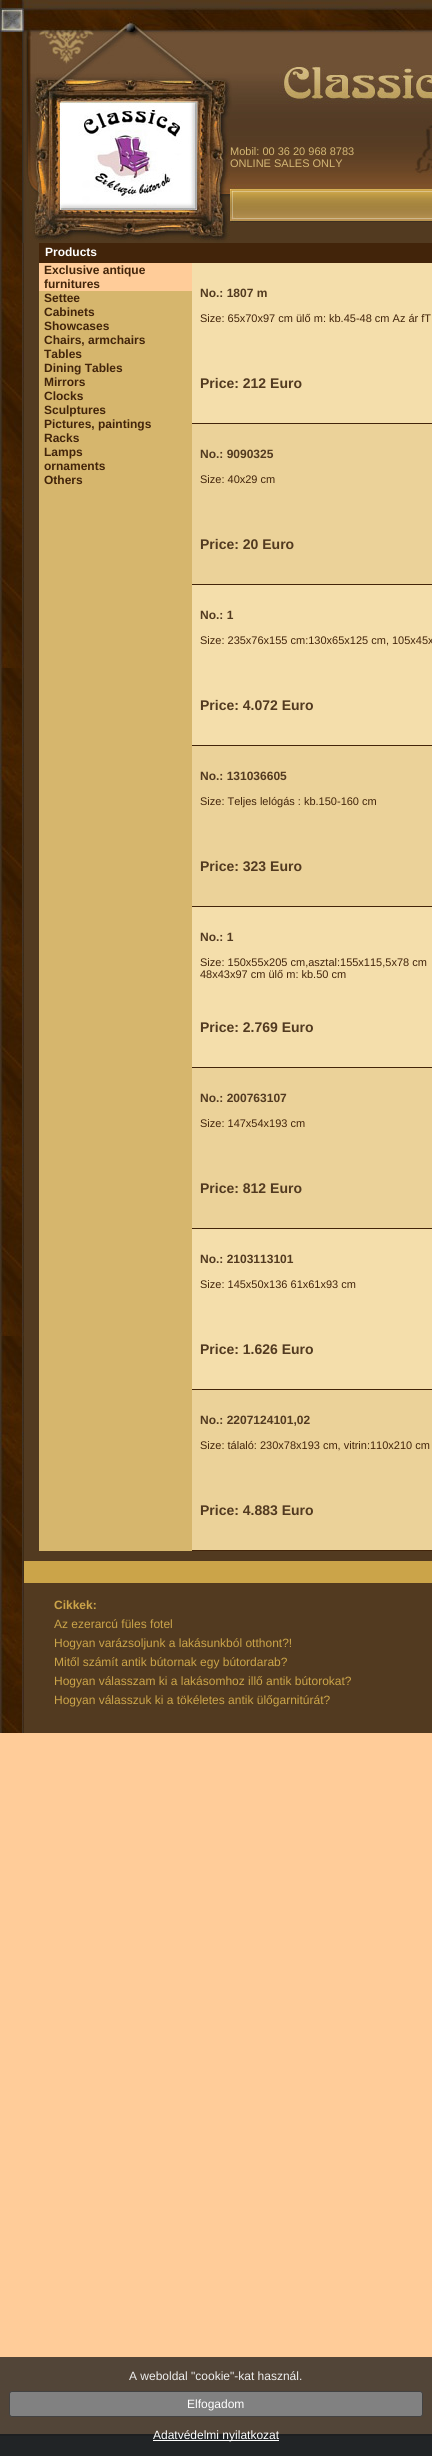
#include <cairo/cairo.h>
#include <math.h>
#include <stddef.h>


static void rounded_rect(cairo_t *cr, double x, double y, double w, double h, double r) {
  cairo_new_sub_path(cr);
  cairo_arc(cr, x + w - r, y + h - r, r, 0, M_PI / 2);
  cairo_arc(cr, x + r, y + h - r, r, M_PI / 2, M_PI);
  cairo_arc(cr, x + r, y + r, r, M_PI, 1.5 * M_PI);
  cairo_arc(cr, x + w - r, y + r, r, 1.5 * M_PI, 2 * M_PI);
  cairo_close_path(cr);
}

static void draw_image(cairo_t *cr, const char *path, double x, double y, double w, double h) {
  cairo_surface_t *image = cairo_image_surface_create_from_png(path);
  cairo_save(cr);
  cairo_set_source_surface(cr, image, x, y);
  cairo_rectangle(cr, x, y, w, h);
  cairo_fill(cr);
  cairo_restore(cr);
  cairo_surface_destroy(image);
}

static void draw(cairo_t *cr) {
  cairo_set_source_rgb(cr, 1, 204 / 255.0, 153 / 255.0);
  cairo_paint(cr);
  cairo_set_source_rgb(cr, 82 / 255.0, 69 / 255.0, 56 / 255.0);
  cairo_rectangle(cr, 0, 2357, 432, 77);
  cairo_fill(cr);
  draw_image(cr, "images/1.png", 0, 32, 24, 1701);
  draw_image(cr, "images/2.png", 0, 0, 432, 32);
  draw_image(cr, "images/3.png", 22, 32, 410, 211);
  cairo_set_source_rgb(cr, 82 / 255.0, 58 / 255.0, 32 / 255.0);
  cairo_rectangle(cr, 24, 243, 408, 1490);
  cairo_fill(cr);
  cairo_set_source_rgb(cr, 66 / 255.0, 36 / 255.0, 10 / 255.0);
  cairo_rectangle(cr, 39, 243, 393, 20);
  cairo_fill(cr);
  cairo_set_source_rgb(cr, 214 / 255.0, 182 / 255.0, 109 / 255.0);
  cairo_rectangle(cr, 39, 291, 153, 1260);
  cairo_fill(cr);
  cairo_set_source_rgb(cr, 1, 204 / 255.0, 153 / 255.0);
  cairo_rectangle(cr, 39, 263, 153, 28);
  cairo_fill(cr);
  cairo_set_source_rgb(cr, 244 / 255.0, 222 / 255.0, 171 / 255.0);
  cairo_rectangle(cr, 192, 263, 240, 160);
  cairo_fill(cr);
  cairo_set_source_rgb(cr, 66 / 255.0, 36 / 255.0, 10 / 255.0);
  cairo_rectangle(cr, 192, 423, 240, 1);
  cairo_fill(cr);
  cairo_set_source_rgb(cr, 235 / 255.0, 210 / 255.0, 153 / 255.0);
  cairo_rectangle(cr, 192, 424, 240, 160);
  cairo_fill(cr);
  cairo_set_source_rgb(cr, 66 / 255.0, 36 / 255.0, 10 / 255.0);
  cairo_rectangle(cr, 192, 584, 240, 1);
  cairo_fill(cr);
  cairo_set_source_rgb(cr, 244 / 255.0, 222 / 255.0, 171 / 255.0);
  cairo_rectangle(cr, 192, 585, 240, 160);
  cairo_fill(cr);
  cairo_set_source_rgb(cr, 66 / 255.0, 36 / 255.0, 10 / 255.0);
  cairo_rectangle(cr, 192, 745, 240, 1);
  cairo_fill(cr);
  cairo_set_source_rgb(cr, 235 / 255.0, 210 / 255.0, 153 / 255.0);
  cairo_rectangle(cr, 192, 746, 240, 160);
  cairo_fill(cr);
  cairo_set_source_rgb(cr, 66 / 255.0, 36 / 255.0, 10 / 255.0);
  cairo_rectangle(cr, 192, 906, 240, 1);
  cairo_fill(cr);
  cairo_set_source_rgb(cr, 244 / 255.0, 222 / 255.0, 171 / 255.0);
  cairo_rectangle(cr, 192, 907, 240, 160);
  cairo_fill(cr);
  cairo_set_source_rgb(cr, 66 / 255.0, 36 / 255.0, 10 / 255.0);
  cairo_rectangle(cr, 192, 1067, 240, 1);
  cairo_fill(cr);
  cairo_set_source_rgb(cr, 235 / 255.0, 210 / 255.0, 153 / 255.0);
  cairo_rectangle(cr, 192, 1068, 240, 160);
  cairo_fill(cr);
  cairo_set_source_rgb(cr, 66 / 255.0, 36 / 255.0, 10 / 255.0);
  cairo_rectangle(cr, 192, 1228, 240, 1);
  cairo_fill(cr);
  cairo_set_source_rgb(cr, 244 / 255.0, 222 / 255.0, 171 / 255.0);
  cairo_rectangle(cr, 192, 1229, 240, 160);
  cairo_fill(cr);
  cairo_set_source_rgb(cr, 66 / 255.0, 36 / 255.0, 10 / 255.0);
  cairo_rectangle(cr, 192, 1389, 240, 1);
  cairo_fill(cr);
  cairo_set_source_rgb(cr, 235 / 255.0, 210 / 255.0, 153 / 255.0);
  cairo_rectangle(cr, 192, 1390, 240, 160);
  cairo_fill(cr);
  cairo_set_source_rgb(cr, 66 / 255.0, 36 / 255.0, 10 / 255.0);
  cairo_rectangle(cr, 192, 1550, 240, 1);
  cairo_fill(cr);
  cairo_set_source_rgb(cr, 203 / 255.0, 164 / 255.0, 73 / 255.0);
  cairo_rectangle(cr, 24, 1561, 408, 22);
  cairo_fill(cr);
  cairo_set_source_rgb(cr, 129 / 255.0, 129 / 255.0, 129 / 255.0);
  rounded_rect(cr, 9.5, 2391.5, 413, 25, 2.5);
  cairo_fill_preserve(cr);
  cairo_set_source_rgb(cr, 66 / 255.0, 66 / 255.0, 66 / 255.0);
  cairo_set_line_width(cr, 1);
  cairo_stroke(cr);
  cairo_set_source_rgb(cr, 33 / 255.0, 36 / 255.0, 38 / 255.0);
  cairo_rectangle(cr, 0, 2436, 432, 20);
  cairo_fill(cr);
  cairo_set_source_rgb(cr, 1, 1, 1);
  cairo_rectangle(cr, 153, 2440, 126, 1);
  cairo_fill(cr);
  cairo_set_source_rgb(cr, 29 / 255.0, 31 / 255.0, 33 / 255.0);
  cairo_rectangle(cr, 0, 2434, 432, 2);
  cairo_fill(cr);
  cairo_select_font_face(cr, "Liberation Sans", CAIRO_FONT_SLANT_NORMAL, CAIRO_FONT_WEIGHT_NORMAL);
  cairo_set_font_size(cr, 11);
  cairo_set_source_rgb(cr, 212 / 255.0, 183 / 255.0, 117 / 255.0);
  cairo_move_to(cr, 230, 155);
  cairo_show_text(cr, "Mobil: 00 36 20 968 8783");
  cairo_move_to(cr, 230, 167);
  cairo_show_text(cr, "ONLINE SALES ONLY");
  cairo_select_font_face(cr, "Liberation Sans", CAIRO_FONT_SLANT_NORMAL, CAIRO_FONT_WEIGHT_BOLD);
  cairo_set_font_size(cr, 12);
  cairo_set_source_rgb(cr, 1, 1, 1);
  cairo_move_to(cr, 45, 256);
  cairo_show_text(cr, "Products");
  cairo_set_source_rgb(cr, 66 / 255.0, 36 / 255.0, 10 / 255.0);
  cairo_move_to(cr, 44, 274);
  cairo_show_text(cr, "Exclusive antique");
  cairo_move_to(cr, 44, 288);
  cairo_show_text(cr, "furnitures");
  cairo_move_to(cr, 44, 302);
  cairo_show_text(cr, "Settee");
  cairo_move_to(cr, 44, 316);
  cairo_show_text(cr, "Cabinets");
  cairo_move_to(cr, 44, 330);
  cairo_show_text(cr, "Showcases");
  cairo_move_to(cr, 44, 344);
  cairo_show_text(cr, "Chairs, armchairs");
  cairo_move_to(cr, 44, 358);
  cairo_show_text(cr, "Tables");
  cairo_move_to(cr, 44, 372);
  cairo_show_text(cr, "Dining Tables");
  cairo_move_to(cr, 44, 386);
  cairo_show_text(cr, "Mirrors");
  cairo_move_to(cr, 44, 400);
  cairo_show_text(cr, "Clocks");
  cairo_move_to(cr, 44, 414);
  cairo_show_text(cr, "Sculptures");
  cairo_move_to(cr, 44, 428);
  cairo_show_text(cr, "Pictures, paintings");
  cairo_move_to(cr, 44, 442);
  cairo_show_text(cr, "Racks");
  cairo_move_to(cr, 44, 456);
  cairo_show_text(cr, "Lamps");
  cairo_move_to(cr, 44, 470);
  cairo_show_text(cr, "ornaments");
  cairo_move_to(cr, 44, 484);
  cairo_show_text(cr, "Others");
  cairo_set_source_rgb(cr, 82 / 255.0, 58 / 255.0, 32 / 255.0);
  cairo_move_to(cr, 200, 297);
  cairo_show_text(cr, "No.: 1807 m");
  cairo_select_font_face(cr, "Liberation Sans", CAIRO_FONT_SLANT_NORMAL, CAIRO_FONT_WEIGHT_NORMAL);
  cairo_set_font_size(cr, 11);
  cairo_set_source_rgb(cr, 66 / 255.0, 36 / 255.0, 10 / 255.0);
  cairo_move_to(cr, 200, 322);
  cairo_show_text(cr, "Size: 65x70x97 cm ülő m: kb.45-48 cm Az ár fT");
  cairo_select_font_face(cr, "Liberation Sans", CAIRO_FONT_SLANT_NORMAL, CAIRO_FONT_WEIGHT_BOLD);
  cairo_set_font_size(cr, 14);
  cairo_set_source_rgb(cr, 82 / 255.0, 58 / 255.0, 32 / 255.0);
  cairo_move_to(cr, 200, 388);
  cairo_show_text(cr, "Price: 212 Euro");
  cairo_set_font_size(cr, 12);
  cairo_move_to(cr, 200, 458);
  cairo_show_text(cr, "No.: 9090325");
  cairo_select_font_face(cr, "Liberation Sans", CAIRO_FONT_SLANT_NORMAL, CAIRO_FONT_WEIGHT_NORMAL);
  cairo_set_font_size(cr, 11);
  cairo_set_source_rgb(cr, 66 / 255.0, 36 / 255.0, 10 / 255.0);
  cairo_move_to(cr, 200, 483);
  cairo_show_text(cr, "Size: 40x29 cm");
  cairo_select_font_face(cr, "Liberation Sans", CAIRO_FONT_SLANT_NORMAL, CAIRO_FONT_WEIGHT_BOLD);
  cairo_set_font_size(cr, 14);
  cairo_set_source_rgb(cr, 82 / 255.0, 58 / 255.0, 32 / 255.0);
  cairo_move_to(cr, 200, 549);
  cairo_show_text(cr, "Price: 20 Euro");
  cairo_set_font_size(cr, 12);
  cairo_move_to(cr, 200, 619);
  cairo_show_text(cr, "No.: 1");
  cairo_select_font_face(cr, "Liberation Sans", CAIRO_FONT_SLANT_NORMAL, CAIRO_FONT_WEIGHT_NORMAL);
  cairo_set_font_size(cr, 11);
  cairo_set_source_rgb(cr, 66 / 255.0, 36 / 255.0, 10 / 255.0);
  cairo_move_to(cr, 200, 644);
  cairo_show_text(cr, "Size: 235x76x155 cm:130x65x125 cm, 105x45x");
  cairo_select_font_face(cr, "Liberation Sans", CAIRO_FONT_SLANT_NORMAL, CAIRO_FONT_WEIGHT_BOLD);
  cairo_set_font_size(cr, 14);
  cairo_set_source_rgb(cr, 82 / 255.0, 58 / 255.0, 32 / 255.0);
  cairo_move_to(cr, 200, 710);
  cairo_show_text(cr, "Price: 4.072 Euro");
  cairo_set_font_size(cr, 12);
  cairo_move_to(cr, 200, 780);
  cairo_show_text(cr, "No.: 131036605");
  cairo_select_font_face(cr, "Liberation Sans", CAIRO_FONT_SLANT_NORMAL, CAIRO_FONT_WEIGHT_NORMAL);
  cairo_set_font_size(cr, 11);
  cairo_set_source_rgb(cr, 66 / 255.0, 36 / 255.0, 10 / 255.0);
  cairo_move_to(cr, 200, 805);
  cairo_show_text(cr, "Size: Teljes lelógás : kb.150-160 cm");
  cairo_select_font_face(cr, "Liberation Sans", CAIRO_FONT_SLANT_NORMAL, CAIRO_FONT_WEIGHT_BOLD);
  cairo_set_font_size(cr, 14);
  cairo_set_source_rgb(cr, 82 / 255.0, 58 / 255.0, 32 / 255.0);
  cairo_move_to(cr, 200, 871);
  cairo_show_text(cr, "Price: 323 Euro");
  cairo_set_font_size(cr, 12);
  cairo_move_to(cr, 200, 941);
  cairo_show_text(cr, "No.: 1");
  cairo_select_font_face(cr, "Liberation Sans", CAIRO_FONT_SLANT_NORMAL, CAIRO_FONT_WEIGHT_NORMAL);
  cairo_set_font_size(cr, 11);
  cairo_set_source_rgb(cr, 66 / 255.0, 36 / 255.0, 10 / 255.0);
  cairo_move_to(cr, 200, 966);
  cairo_show_text(cr, "Size: 150x55x205 cm,asztal:155x115,5x78 cm");
  cairo_move_to(cr, 200, 978);
  cairo_show_text(cr, "48x43x97 cm ülő m: kb.50 cm");
  cairo_select_font_face(cr, "Liberation Sans", CAIRO_FONT_SLANT_NORMAL, CAIRO_FONT_WEIGHT_BOLD);
  cairo_set_font_size(cr, 14);
  cairo_set_source_rgb(cr, 82 / 255.0, 58 / 255.0, 32 / 255.0);
  cairo_move_to(cr, 200, 1032);
  cairo_show_text(cr, "Price: 2.769 Euro");
  cairo_set_font_size(cr, 12);
  cairo_move_to(cr, 200, 1102);
  cairo_show_text(cr, "No.: 200763107");
  cairo_select_font_face(cr, "Liberation Sans", CAIRO_FONT_SLANT_NORMAL, CAIRO_FONT_WEIGHT_NORMAL);
  cairo_set_font_size(cr, 11);
  cairo_set_source_rgb(cr, 66 / 255.0, 36 / 255.0, 10 / 255.0);
  cairo_move_to(cr, 200, 1127);
  cairo_show_text(cr, "Size: 147x54x193 cm");
  cairo_select_font_face(cr, "Liberation Sans", CAIRO_FONT_SLANT_NORMAL, CAIRO_FONT_WEIGHT_BOLD);
  cairo_set_font_size(cr, 14);
  cairo_set_source_rgb(cr, 82 / 255.0, 58 / 255.0, 32 / 255.0);
  cairo_move_to(cr, 200, 1193);
  cairo_show_text(cr, "Price: 812 Euro");
  cairo_set_font_size(cr, 12);
  cairo_move_to(cr, 200, 1263);
  cairo_show_text(cr, "No.: 2103113101");
  cairo_select_font_face(cr, "Liberation Sans", CAIRO_FONT_SLANT_NORMAL, CAIRO_FONT_WEIGHT_NORMAL);
  cairo_set_font_size(cr, 11);
  cairo_set_source_rgb(cr, 66 / 255.0, 36 / 255.0, 10 / 255.0);
  cairo_move_to(cr, 200, 1288);
  cairo_show_text(cr, "Size: 145x50x136 61x61x93 cm");
  cairo_select_font_face(cr, "Liberation Sans", CAIRO_FONT_SLANT_NORMAL, CAIRO_FONT_WEIGHT_BOLD);
  cairo_set_font_size(cr, 14);
  cairo_set_source_rgb(cr, 82 / 255.0, 58 / 255.0, 32 / 255.0);
  cairo_move_to(cr, 200, 1354);
  cairo_show_text(cr, "Price: 1.626 Euro");
  cairo_set_font_size(cr, 12);
  cairo_move_to(cr, 200, 1424);
  cairo_show_text(cr, "No.: 2207124101,02");
  cairo_select_font_face(cr, "Liberation Sans", CAIRO_FONT_SLANT_NORMAL, CAIRO_FONT_WEIGHT_NORMAL);
  cairo_set_font_size(cr, 11);
  cairo_set_source_rgb(cr, 66 / 255.0, 36 / 255.0, 10 / 255.0);
  cairo_move_to(cr, 200, 1449);
  cairo_show_text(cr, "Size: tálaló: 230x78x193 cm, vitrin:110x210 cm");
  cairo_select_font_face(cr, "Liberation Sans", CAIRO_FONT_SLANT_NORMAL, CAIRO_FONT_WEIGHT_BOLD);
  cairo_set_font_size(cr, 14);
  cairo_set_source_rgb(cr, 82 / 255.0, 58 / 255.0, 32 / 255.0);
  cairo_move_to(cr, 200, 1515);
  cairo_show_text(cr, "Price: 4.883 Euro");
  cairo_set_font_size(cr, 12);
  cairo_set_source_rgb(cr, 203 / 255.0, 164 / 255.0, 73 / 255.0);
  cairo_move_to(cr, 54, 1609);
  cairo_show_text(cr, "Cikkek:");
  cairo_select_font_face(cr, "Liberation Sans", CAIRO_FONT_SLANT_NORMAL, CAIRO_FONT_WEIGHT_NORMAL);
  cairo_move_to(cr, 54, 1628);
  cairo_show_text(cr, "Az ezerarcú füles fotel");
  cairo_move_to(cr, 54, 1647);
  cairo_show_text(cr, "Hogyan varázsoljunk a lakásunkból otthont?!");
  cairo_move_to(cr, 54, 1666);
  cairo_show_text(cr, "Mitől számít antik bútornak egy bútordarab?");
  cairo_move_to(cr, 54, 1685);
  cairo_show_text(cr, "Hogyan válasszam ki a lakásomhoz illő antik bútorokat?");
  cairo_move_to(cr, 54, 1704);
  cairo_show_text(cr, "Hogyan válasszuk ki a tökéletes antik ülőgarnitúrát?");
  cairo_set_source_rgb(cr, 238 / 255.0, 238 / 255.0, 238 / 255.0);
  cairo_move_to(cr, 129, 2380);
  cairo_show_text(cr, "A weboldal \"cookie\"-kat használ.");
  cairo_set_source_rgb(cr, 1, 1, 1);
  cairo_move_to(cr, 187, 2408);
  cairo_show_text(cr, "Elfogadom");
  cairo_move_to(cr, 153, 2439);
  cairo_show_text(cr, "Adatvédelmi nyilatkozat");
}

int main(void) {
  cairo_surface_t *surface = cairo_image_surface_create(CAIRO_FORMAT_RGB24, 432, 2456);
  cairo_t *cr = cairo_create(surface);
  cairo_font_options_t *options = cairo_font_options_create();
  cairo_font_options_set_hint_metrics(options, CAIRO_HINT_METRICS_OFF);
  cairo_font_options_set_hint_style(options, CAIRO_HINT_STYLE_NONE);
  cairo_set_font_options(cr, options);
  cairo_set_miter_limit(cr, 4);
  draw(cr);
  cairo_surface_write_to_png(surface, "out.png");
  cairo_font_options_destroy(options);
  cairo_destroy(cr);
  cairo_surface_destroy(surface);
  return 0;
}
